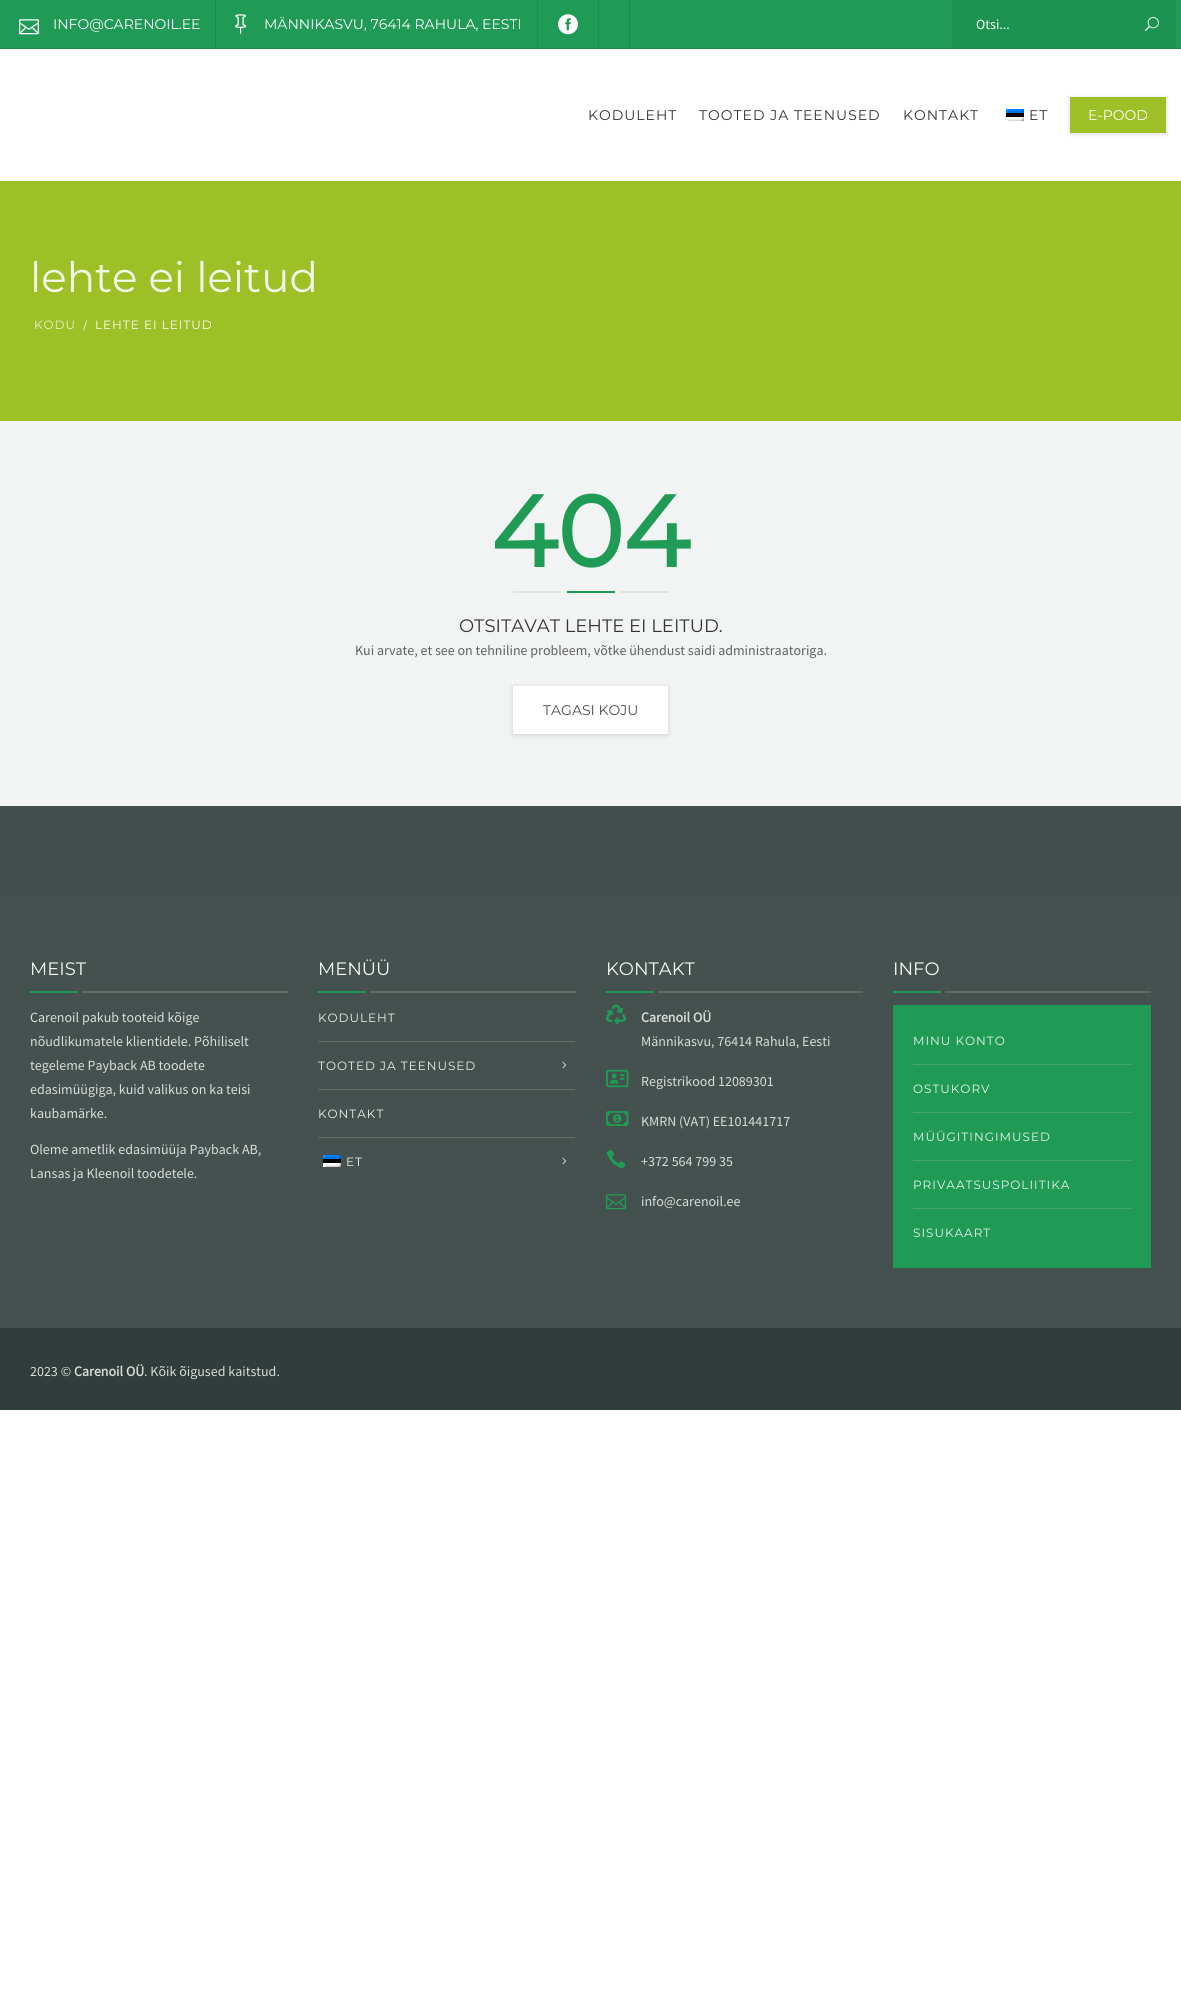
#include <cairo/cairo.h>
#include <math.h>
#include <stddef.h>


static void draw_spaced(cairo_t *cr, double x, double y, const char *s, double letter, double word) {
  cairo_move_to(cr, x, y);
  while (*s) {
    char ch[5] = {0};
    int n = 0;
    do ch[n++] = *s++; while ((*s & 0xC0) == 0x80);
    cairo_show_text(cr, ch);
    cairo_rel_move_to(cr, letter + word * (*ch == ' '), 0);
  }
}

static void rounded_rect(cairo_t *cr, double x, double y, double w, double h, double r) {
  cairo_new_sub_path(cr);
  cairo_arc(cr, x + w - r, y + h - r, r, 0, M_PI / 2);
  cairo_arc(cr, x + r, y + h - r, r, M_PI / 2, M_PI);
  cairo_arc(cr, x + r, y + r, r, M_PI, 1.5 * M_PI);
  cairo_arc(cr, x + w - r, y + r, r, 1.5 * M_PI, 2 * M_PI);
  cairo_close_path(cr);
}

static void draw_shadow(cairo_t *cr, double x, double y, double w, double h, double r, double blur, double alpha) {
  cairo_push_group_with_content(cr, CAIRO_CONTENT_ALPHA);
  cairo_set_operator(cr, CAIRO_OPERATOR_SOURCE);
  for (int i = 15; i >= -15 && fmin(w, h) + blur * i / 3 > 0; i -= 2) {
    double e = blur * i / 6;
    cairo_set_source_rgba(cr, 0, 0, 0, alpha * erfc((i - 1) / 8.5) / 2);
    rounded_rect(cr, x - e, y - e, w + 2 * e, h + 2 * e, fmax(0, fmin(r + e + blur * .6, fmin(w, h) / 2 + e)));
    cairo_fill(cr);
  }
  cairo_pattern_t *soft = cairo_pop_group(cr);
  cairo_mask(cr, soft);
  cairo_pattern_destroy(soft);
}

static void draw_image(cairo_t *cr, const char *path, double x, double y, double w, double h) {
  cairo_surface_t *image = cairo_image_surface_create_from_png(path);
  cairo_save(cr);
  cairo_set_source_surface(cr, image, x, y);
  cairo_rectangle(cr, x, y, w, h);
  cairo_fill(cr);
  cairo_restore(cr);
  cairo_surface_destroy(image);
}

static void draw(cairo_t *cr) {
  cairo_set_source_rgb(cr, 1, 1, 1);
  cairo_paint(cr);
  cairo_set_source_rgb(cr, 31 / 255.0, 155 / 255.0, 85 / 255.0);
  cairo_rectangle(cr, 0, 0, 1181, 48);
  cairo_fill(cr);
  cairo_set_source_rgb(cr, 28 / 255.0, 140 / 255.0, 77 / 255.0);
  cairo_rectangle(cr, 0, 48, 1181, 1);
  cairo_fill(cr);
  cairo_rectangle(cr, 215, 0, 1, 48);
  cairo_fill(cr);
  draw_image(cr, "images/1.png", 19, 19, 20, 16);
  cairo_rectangle(cr, 537, 0, 1, 48);
  cairo_fill(cr);
  draw_image(cr, "images/2.png", 235, 14, 12, 21);
  cairo_rectangle(cr, 598, 0, 1, 48);
  cairo_fill(cr);
  draw_image(cr, "images/3.png", 558, 14, 20, 21);
  cairo_rectangle(cr, 629, 0, 1, 48);
  cairo_fill(cr);
  cairo_set_source_rgb(cr, 29 / 255.0, 147 / 255.0, 81 / 255.0);
  cairo_rectangle(cr, 952, 0, 224, 48);
  cairo_fill(cr);
  draw_image(cr, "images/4.png", 1145, 17, 14, 14);
  cairo_set_source_rgb(cr, 242 / 255.0, 242 / 255.0, 242 / 255.0);
  cairo_rectangle(cr, 0, 180, 1181, 1);
  cairo_fill(cr);
  draw_image(cr, "images/5.png", 1006, 109, 18, 12);
  cairo_set_source_rgb(cr, 0, 0, 0);
  draw_shadow(cr, 1070, 98, 96, 36, 0, 2.5, 0.15);
  cairo_set_source_rgb(cr, 156 / 255.0, 192 / 255.0, 38 / 255.0);
  cairo_rectangle(cr, 1070, 97, 96, 36);
  cairo_fill(cr);
  cairo_rectangle(cr, 0, 181, 1181, 240);
  cairo_fill(cr);
  cairo_set_source_rgb(cr, 242 / 255.0, 244 / 255.0, 244 / 255.0);
  cairo_rectangle(cr, 0, 421, 1181, 385);
  cairo_fill(cr);
  cairo_set_source_rgb(cr, 225 / 255.0, 227 / 255.0, 227 / 255.0);
  cairo_rectangle(cr, 513, 591, 48, 2);
  cairo_fill(cr);
  cairo_rectangle(cr, 621, 591, 48, 2);
  cairo_fill(cr);
  cairo_set_source_rgb(cr, 31 / 255.0, 155 / 255.0, 85 / 255.0);
  cairo_rectangle(cr, 567, 591, 48, 2);
  cairo_fill(cr);
  cairo_set_source_rgb(cr, 0, 0, 0);
  draw_shadow(cr, 513, 687, 155, 48, 0, 2.5, 0.15);
  cairo_set_source_rgb(cr, 1, 1, 1);
  cairo_rectangle(cr, 513, 686, 155, 48);
  cairo_fill(cr);
  cairo_set_source_rgb(cr, 66 / 255.0, 78 / 255.0, 76 / 255.0);
  cairo_rectangle(cr, 0, 806, 1181, 91);
  cairo_fill(cr);
  cairo_set_source_rgb(cr, 68 / 255.0, 81 / 255.0, 78 / 255.0);
  cairo_rectangle(cr, 0, 897, 1181, 431);
  cairo_fill(cr);
  cairo_set_source_rgb(cr, 31 / 255.0, 155 / 255.0, 85 / 255.0);
  cairo_rectangle(cr, 30, 991, 48, 2);
  cairo_fill(cr);
  cairo_set_source_rgb(cr, 98 / 255.0, 109 / 255.0, 106 / 255.0);
  cairo_rectangle(cr, 82, 991, 206, 2);
  cairo_fill(cr);
  cairo_set_source_rgb(cr, 31 / 255.0, 155 / 255.0, 85 / 255.0);
  cairo_rectangle(cr, 318, 991, 48, 2);
  cairo_fill(cr);
  cairo_set_source_rgb(cr, 98 / 255.0, 109 / 255.0, 106 / 255.0);
  cairo_rectangle(cr, 370, 991, 206, 2);
  cairo_fill(cr);
  cairo_rectangle(cr, 318, 1041, 257, 1);
  cairo_fill(cr);
  cairo_rectangle(cr, 318, 1089, 257, 1);
  cairo_fill(cr);
  draw_image(cr, "images/6.png", 562, 1061, 5, 8);
  cairo_rectangle(cr, 318, 1137, 257, 1);
  cairo_fill(cr);
  draw_image(cr, "images/5.png", 323, 1155, 18, 12);
  draw_image(cr, "images/6.png", 562, 1157, 5, 8);
  cairo_set_source_rgb(cr, 31 / 255.0, 155 / 255.0, 85 / 255.0);
  cairo_rectangle(cr, 606, 991, 48, 2);
  cairo_fill(cr);
  cairo_set_source_rgb(cr, 98 / 255.0, 109 / 255.0, 106 / 255.0);
  cairo_rectangle(cr, 658, 991, 205, 2);
  cairo_fill(cr);
  draw_image(cr, "images/7.png", 606, 1004, 20, 21);
  draw_image(cr, "images/8.png", 606, 1069, 23, 19);
  draw_image(cr, "images/9.png", 606, 1111, 23, 15);
  draw_image(cr, "images/10.png", 606, 1150, 20, 19);
  draw_image(cr, "images/11.png", 606, 1194, 20, 16);
  cairo_set_source_rgb(cr, 31 / 255.0, 155 / 255.0, 85 / 255.0);
  cairo_rectangle(cr, 893, 991, 48, 2);
  cairo_fill(cr);
  cairo_set_source_rgb(cr, 98 / 255.0, 109 / 255.0, 106 / 255.0);
  cairo_rectangle(cr, 945, 991, 206, 2);
  cairo_fill(cr);
  cairo_set_source_rgb(cr, 31 / 255.0, 155 / 255.0, 85 / 255.0);
  cairo_rectangle(cr, 893, 1005, 258, 263);
  cairo_fill(cr);
  cairo_set_source_rgb(cr, 67 / 255.0, 171 / 255.0, 112 / 255.0);
  cairo_rectangle(cr, 913, 1064, 218, 1);
  cairo_fill(cr);
  cairo_rectangle(cr, 913, 1112, 218, 1);
  cairo_fill(cr);
  cairo_rectangle(cr, 913, 1160, 218, 1);
  cairo_fill(cr);
  cairo_rectangle(cr, 913, 1208, 218, 1);
  cairo_fill(cr);
  cairo_set_source_rgb(cr, 48 / 255.0, 61 / 255.0, 58 / 255.0);
  cairo_rectangle(cr, 0, 1328, 1181, 82);
  cairo_fill(cr);
  cairo_select_font_face(cr, "Montserrat Thin", CAIRO_FONT_SLANT_NORMAL, CAIRO_FONT_WEIGHT_NORMAL);
  cairo_set_font_size(cr, 14);
  cairo_set_source_rgb(cr, 1, 1, 1);
  cairo_move_to(cr, 53, 29);
  cairo_show_text(cr, "INFO@CARENOIL.EE");
  cairo_move_to(cr, 264, 29);
  cairo_show_text(cr, "MÄNNIKASVU, 76414 RAHULA, EESTI");
  cairo_select_font_face(cr, "Source Sans Pro", CAIRO_FONT_SLANT_NORMAL, CAIRO_FONT_WEIGHT_NORMAL);
  cairo_move_to(cr, 976, 29);
  cairo_show_text(cr, "Otsi...");
  cairo_select_font_face(cr, "Montserrat Thin", CAIRO_FONT_SLANT_NORMAL, CAIRO_FONT_WEIGHT_NORMAL);
  cairo_set_source_rgb(cr, 51 / 255.0, 51 / 255.0, 51 / 255.0);
  draw_spaced(cr, 588, 120, "KODULEHT", 1, 0);
  draw_spaced(cr, 699, 120, "TOOTED JA TEENUSED", 1, 0);
  draw_spaced(cr, 903, 120, "KONTAKT", 1, 0);
  draw_spaced(cr, 1029, 120, "ET", 1, 0);
  cairo_set_source_rgb(cr, 1, 1, 1);
  cairo_move_to(cr, 1088, 120);
  cairo_show_text(cr, "E-POOD");
  cairo_set_font_size(cr, 42);
  cairo_set_source_rgb(cr, 245 / 255.0, 249 / 255.0, 233 / 255.0);
  cairo_move_to(cr, 30, 292);
  cairo_show_text(cr, "lehte ei leitud");
  cairo_set_font_size(cr, 12);
  cairo_set_source_rgb(cr, 235 / 255.0, 242 / 255.0, 212 / 255.0);
  draw_spaced(cr, 34, 329, "KODU", 1, 0);
  cairo_select_font_face(cr, "Source Sans Pro", CAIRO_FONT_SLANT_NORMAL, CAIRO_FONT_WEIGHT_NORMAL);
  cairo_set_source_rgb(cr, 1, 1, 1);
  draw_spaced(cr, 83, 329, "/", 1, 0);
  cairo_select_font_face(cr, "Montserrat Thin", CAIRO_FONT_SLANT_NORMAL, CAIRO_FONT_WEIGHT_NORMAL);
  draw_spaced(cr, 95, 329, "LEHTE EI LEITUD", 1, 0);
  cairo_select_font_face(cr, "Montserrat", CAIRO_FONT_SLANT_NORMAL, CAIRO_FONT_WEIGHT_BOLD);
  cairo_set_font_size(cr, 100);
  cairo_set_source_rgb(cr, 31 / 255.0, 155 / 255.0, 85 / 255.0);
  cairo_move_to(cr, 491, 567);
  cairo_show_text(cr, "404");
  cairo_select_font_face(cr, "Montserrat Thin", CAIRO_FONT_SLANT_NORMAL, CAIRO_FONT_WEIGHT_NORMAL);
  cairo_set_font_size(cr, 18);
  cairo_set_source_rgb(cr, 51 / 255.0, 51 / 255.0, 51 / 255.0);
  cairo_move_to(cr, 459, 632);
  cairo_show_text(cr, "OTSITAVAT LEHTE EI LEITUD.");
  cairo_select_font_face(cr, "Source Sans Pro", CAIRO_FONT_SLANT_NORMAL, CAIRO_FONT_WEIGHT_NORMAL);
  cairo_set_font_size(cr, 14);
  cairo_set_source_rgb(cr, 97 / 255.0, 98 / 255.0, 98 / 255.0);
  cairo_move_to(cr, 355, 655);
  cairo_show_text(cr, "Kui arvate, et see on tehniline probleem, võtke ühendust saidi administraatoriga.");
  cairo_select_font_face(cr, "Montserrat Thin", CAIRO_FONT_SLANT_NORMAL, CAIRO_FONT_WEIGHT_NORMAL);
  cairo_set_source_rgb(cr, 77 / 255.0, 77 / 255.0, 77 / 255.0);
  cairo_move_to(cr, 543, 715);
  cairo_show_text(cr, "TAGASI KOJU");
  cairo_set_font_size(cr, 18);
  cairo_set_source_rgb(cr, 246 / 255.0, 246 / 255.0, 246 / 255.0);
  cairo_move_to(cr, 30, 975);
  cairo_show_text(cr, "MEIST");
  cairo_select_font_face(cr, "Source Sans Pro", CAIRO_FONT_SLANT_NORMAL, CAIRO_FONT_WEIGHT_NORMAL);
  cairo_set_font_size(cr, 14);
  cairo_set_source_rgb(cr, 218 / 255.0, 220 / 255.0, 220 / 255.0);
  cairo_move_to(cr, 30, 1022);
  cairo_show_text(cr, "Carenoil pakub tooteid kõige");
  cairo_move_to(cr, 30, 1046);
  cairo_show_text(cr, "nõudlikumatele klientidele. Põhiliselt");
  cairo_move_to(cr, 30, 1070);
  cairo_show_text(cr, "tegeleme Payback AB toodete");
  cairo_move_to(cr, 30, 1094);
  cairo_show_text(cr, "edasimüügiga, kuid valikus on ka teisi");
  cairo_move_to(cr, 30, 1118);
  cairo_show_text(cr, "kaubamärke.");
  cairo_move_to(cr, 30, 1154);
  cairo_show_text(cr, "Oleme ametlik edasimüüja Payback AB,");
  cairo_move_to(cr, 30, 1178);
  cairo_show_text(cr, "Lansas ja Kleenoil toodetele.");
  cairo_select_font_face(cr, "Montserrat Thin", CAIRO_FONT_SLANT_NORMAL, CAIRO_FONT_WEIGHT_NORMAL);
  cairo_set_font_size(cr, 18);
  cairo_set_source_rgb(cr, 246 / 255.0, 246 / 255.0, 246 / 255.0);
  cairo_move_to(cr, 318, 975);
  cairo_show_text(cr, "MENÜÜ");
  cairo_set_font_size(cr, 12);
  cairo_set_source_rgb(cr, 236 / 255.0, 238 / 255.0, 237 / 255.0);
  draw_spaced(cr, 318, 1022, "KODULEHT", 1, 0);
  draw_spaced(cr, 318, 1070, "TOOTED JA TEENUSED", 1, 0);
  draw_spaced(cr, 318, 1118, "KONTAKT", 1, 0);
  draw_spaced(cr, 346, 1166, "ET", 1, 0);
  cairo_set_font_size(cr, 18);
  cairo_set_source_rgb(cr, 246 / 255.0, 246 / 255.0, 246 / 255.0);
  cairo_move_to(cr, 606, 975);
  cairo_show_text(cr, "KONTAKT");
  cairo_select_font_face(cr, "Source Sans Pro", CAIRO_FONT_SLANT_NORMAL, CAIRO_FONT_WEIGHT_BOLD);
  cairo_set_font_size(cr, 14);
  cairo_set_source_rgb(cr, 218 / 255.0, 220 / 255.0, 220 / 255.0);
  cairo_move_to(cr, 641, 1022);
  cairo_show_text(cr, "Carenoil OÜ");
  cairo_select_font_face(cr, "Source Sans Pro", CAIRO_FONT_SLANT_NORMAL, CAIRO_FONT_WEIGHT_NORMAL);
  cairo_move_to(cr, 641, 1046);
  cairo_show_text(cr, "Männikasvu, 76414 Rahula, Eesti");
  cairo_move_to(cr, 641, 1086);
  cairo_show_text(cr, "Registrikood 12089301");
  cairo_move_to(cr, 641, 1126);
  cairo_show_text(cr, "KMRN (VAT) EE101441717");
  cairo_move_to(cr, 641, 1166);
  cairo_show_text(cr, "+372 564 799 35");
  cairo_move_to(cr, 641, 1206);
  cairo_show_text(cr, "info@carenoil.ee");
  cairo_select_font_face(cr, "Montserrat Thin", CAIRO_FONT_SLANT_NORMAL, CAIRO_FONT_WEIGHT_NORMAL);
  cairo_set_font_size(cr, 18);
  cairo_set_source_rgb(cr, 246 / 255.0, 246 / 255.0, 246 / 255.0);
  cairo_move_to(cr, 893, 975);
  cairo_show_text(cr, "INFO");
  cairo_set_font_size(cr, 12);
  cairo_set_source_rgb(cr, 233 / 255.0, 245 / 255.0, 238 / 255.0);
  draw_spaced(cr, 913, 1045, "MINU KONTO", 1, 0);
  draw_spaced(cr, 913, 1093, "OSTUKORV", 1, 0);
  draw_spaced(cr, 913, 1141, "MÜÜGITINGIMUSED", 1, 0);
  draw_spaced(cr, 913, 1189, "PRIVAATSUSPOLIITIKA", 1, 0);
  draw_spaced(cr, 913, 1237, "SISUKAART", 1, 0);
  cairo_select_font_face(cr, "Source Sans Pro", CAIRO_FONT_SLANT_NORMAL, CAIRO_FONT_WEIGHT_NORMAL);
  cairo_set_font_size(cr, 14);
  cairo_set_source_rgb(cr, 218 / 255.0, 220 / 255.0, 220 / 255.0);
  cairo_move_to(cr, 30, 1376);
  cairo_show_text(cr, "2023 ©");
  cairo_select_font_face(cr, "Source Sans Pro", CAIRO_FONT_SLANT_NORMAL, CAIRO_FONT_WEIGHT_BOLD);
  cairo_move_to(cr, 74, 1376);
  cairo_show_text(cr, "Carenoil OÜ");
  cairo_select_font_face(cr, "Source Sans Pro", CAIRO_FONT_SLANT_NORMAL, CAIRO_FONT_WEIGHT_NORMAL);
  cairo_move_to(cr, 144, 1376);
  cairo_show_text(cr, ". Kõik õigused kaitstud.");
}

int main(void) {
  cairo_surface_t *surface = cairo_image_surface_create(CAIRO_FORMAT_RGB24, 1181, 1996);
  cairo_t *cr = cairo_create(surface);
  cairo_font_options_t *options = cairo_font_options_create();
  cairo_font_options_set_hint_metrics(options, CAIRO_HINT_METRICS_OFF);
  cairo_font_options_set_hint_style(options, CAIRO_HINT_STYLE_NONE);
  cairo_set_font_options(cr, options);
  cairo_set_miter_limit(cr, 4);
  draw(cr);
  cairo_surface_write_to_png(surface, "out.png");
  cairo_font_options_destroy(options);
  cairo_destroy(cr);
  cairo_surface_destroy(surface);
  return 0;
}
